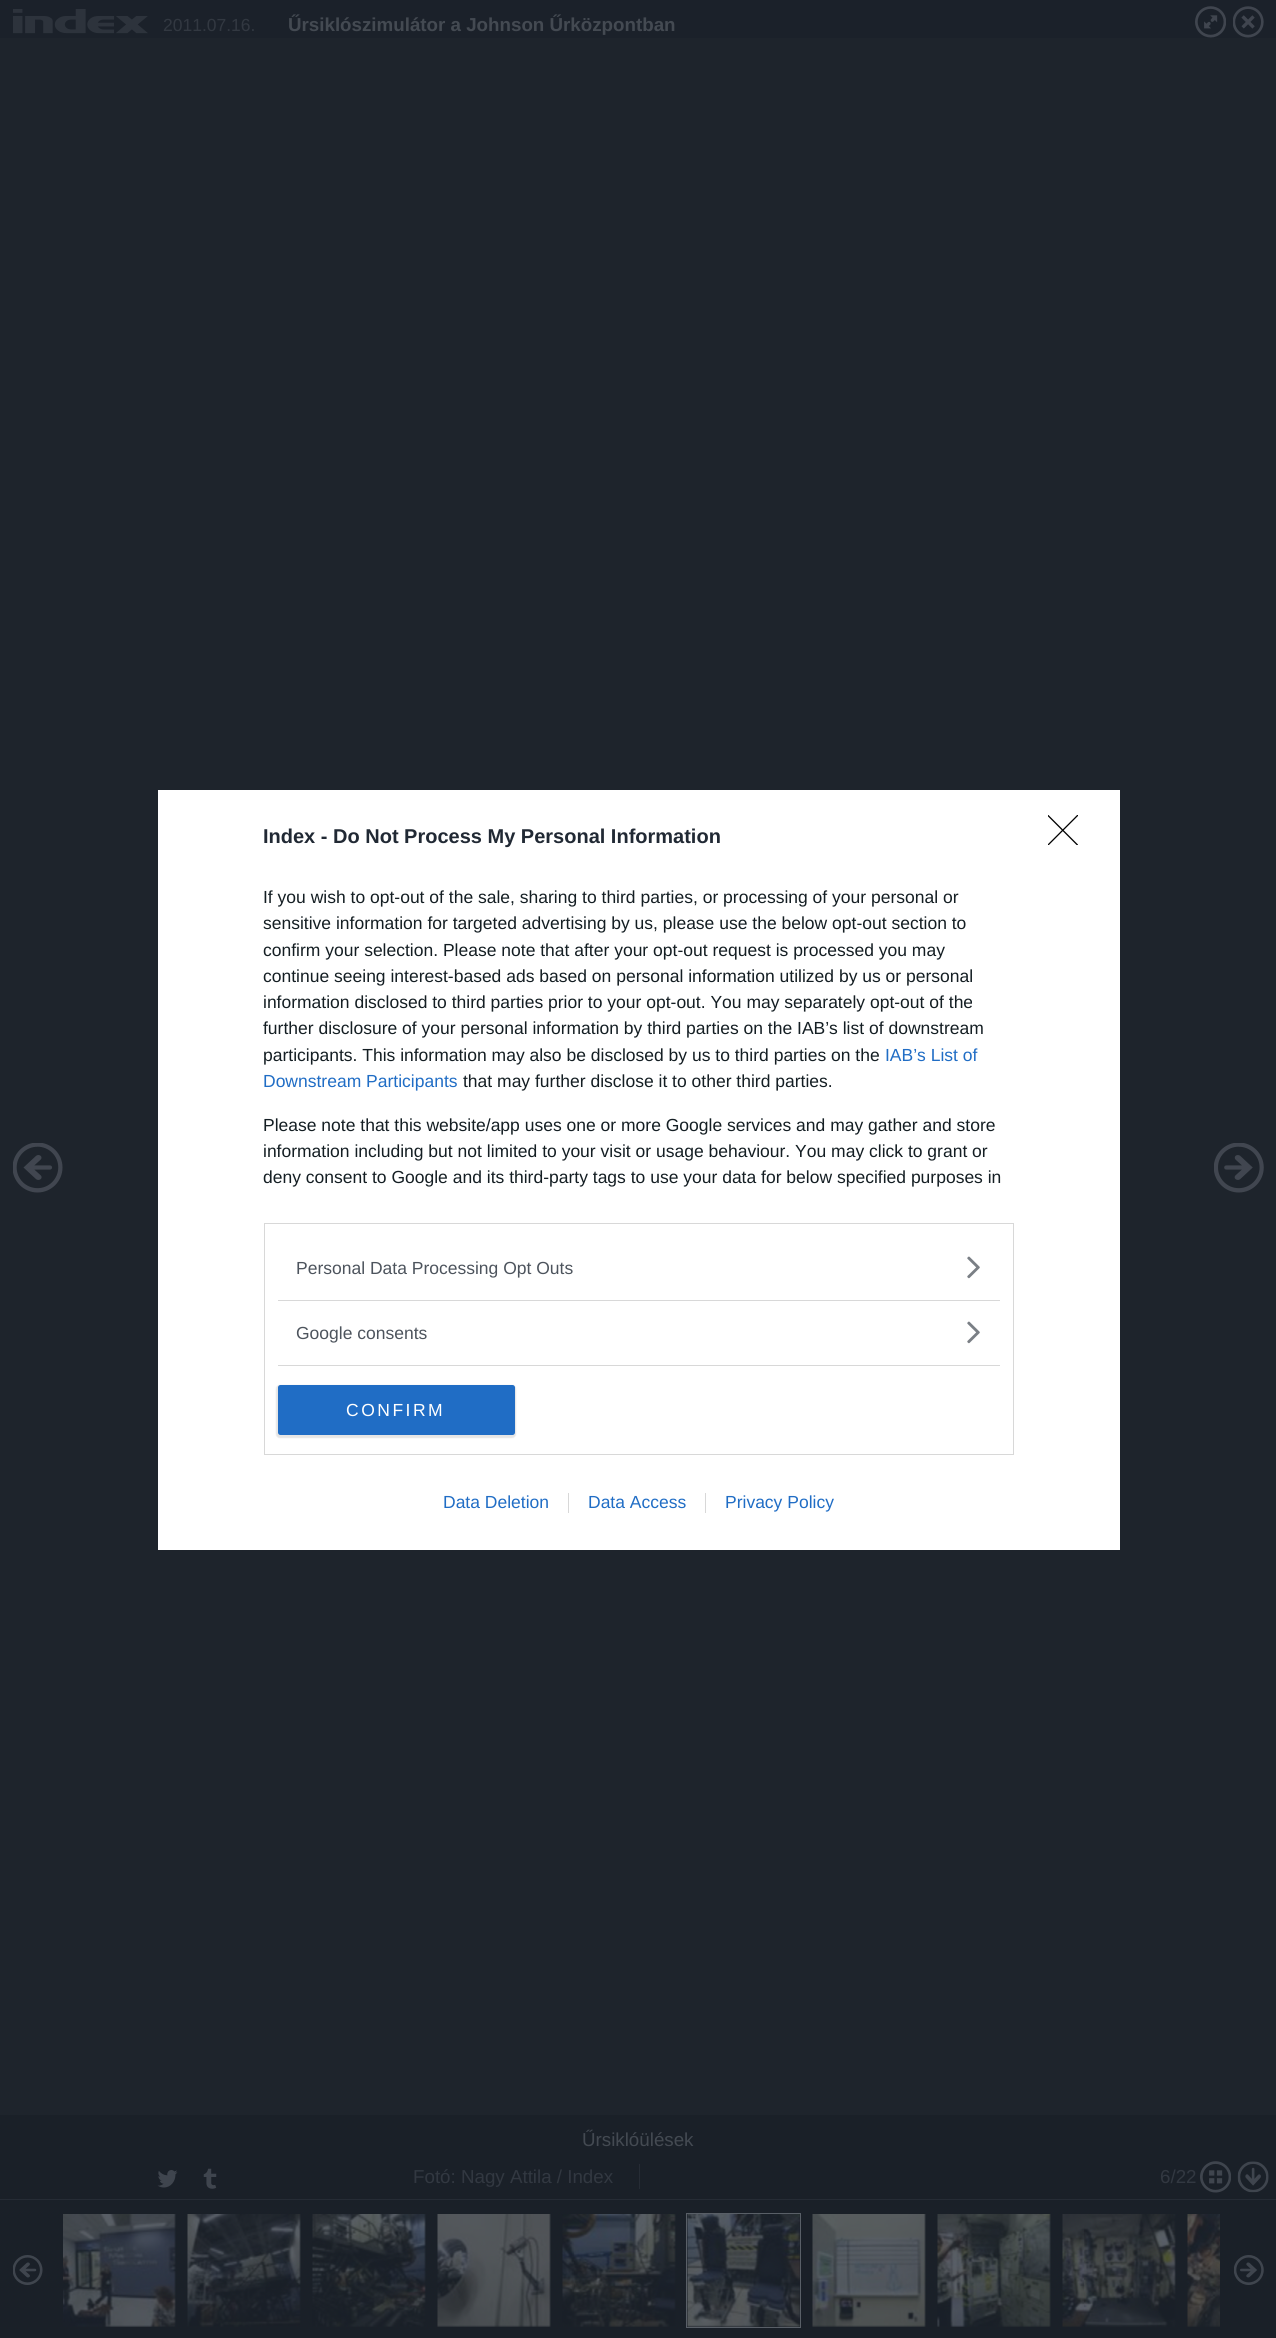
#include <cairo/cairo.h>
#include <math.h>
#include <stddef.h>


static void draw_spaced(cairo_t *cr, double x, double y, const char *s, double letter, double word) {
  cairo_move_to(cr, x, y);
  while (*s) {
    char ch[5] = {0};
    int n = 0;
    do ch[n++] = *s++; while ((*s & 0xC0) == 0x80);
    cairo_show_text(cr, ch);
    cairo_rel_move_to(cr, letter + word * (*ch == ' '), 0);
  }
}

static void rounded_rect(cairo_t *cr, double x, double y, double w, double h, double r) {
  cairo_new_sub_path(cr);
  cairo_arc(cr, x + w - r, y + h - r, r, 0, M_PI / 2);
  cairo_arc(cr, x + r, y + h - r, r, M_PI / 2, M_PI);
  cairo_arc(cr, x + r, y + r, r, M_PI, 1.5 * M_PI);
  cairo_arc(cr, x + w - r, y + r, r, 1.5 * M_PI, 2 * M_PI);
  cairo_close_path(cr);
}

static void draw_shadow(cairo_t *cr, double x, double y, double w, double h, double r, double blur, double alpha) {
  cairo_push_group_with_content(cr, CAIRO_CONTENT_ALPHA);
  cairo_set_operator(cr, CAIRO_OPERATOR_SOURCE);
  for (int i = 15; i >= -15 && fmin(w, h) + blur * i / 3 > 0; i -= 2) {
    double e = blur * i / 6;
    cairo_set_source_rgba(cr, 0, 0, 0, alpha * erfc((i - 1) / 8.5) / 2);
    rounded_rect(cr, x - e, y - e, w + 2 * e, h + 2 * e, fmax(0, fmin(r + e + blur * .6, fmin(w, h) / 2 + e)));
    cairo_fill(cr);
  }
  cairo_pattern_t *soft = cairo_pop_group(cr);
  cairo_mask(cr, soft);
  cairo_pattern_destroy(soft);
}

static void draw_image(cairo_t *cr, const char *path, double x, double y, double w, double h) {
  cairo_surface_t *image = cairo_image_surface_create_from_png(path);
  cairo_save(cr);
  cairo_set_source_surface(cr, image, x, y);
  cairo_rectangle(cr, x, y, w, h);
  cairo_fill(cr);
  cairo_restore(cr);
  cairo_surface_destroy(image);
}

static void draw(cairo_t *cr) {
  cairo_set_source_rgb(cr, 30 / 255.0, 36 / 255.0, 44 / 255.0);
  cairo_paint(cr);
  cairo_set_source_rgb(cr, 27 / 255.0, 33 / 255.0, 42 / 255.0);
  cairo_rectangle(cr, 0, 0, 1276, 38);
  cairo_fill(cr);
  draw_image(cr, "images/1.png", 13, 9, 135, 25);
  draw_image(cr, "images/2.png", 1195, 6, 31, 32);
  draw_image(cr, "images/3.png", 1233, 6, 31, 32);
  draw_image(cr, "images/4.png", 13, 1143, 50, 50);
  draw_image(cr, "images/5.png", 1214, 1143, 50, 50);
  cairo_set_source_rgb(cr, 26 / 255.0, 32 / 255.0, 40 / 255.0);
  cairo_rectangle(cr, 0, 2115, 1276, 223);
  cairo_fill(cr);
  draw_image(cr, "images/6.png", 157, 2170, 21, 18);
  draw_image(cr, "images/7.png", 203, 2168, 14, 21);
  cairo_set_source_rgb(cr, 38 / 255.0, 44 / 255.0, 53 / 255.0);
  cairo_rectangle(cr, 639, 2164, 1, 25);
  cairo_fill(cr);
  draw_image(cr, "images/8.png", 1200, 2161, 31, 32);
  draw_image(cr, "images/9.png", 1237, 2161, 32, 32);
  draw_image(cr, "images/10.png", 63, 2214, 113, 113);
  draw_image(cr, "images/11.png", 187, 2214, 114, 113);
  draw_image(cr, "images/12.png", 312, 2214, 114, 113);
  draw_image(cr, "images/13.png", 437, 2214, 114, 113);
  draw_image(cr, "images/14.png", 562, 2214, 114, 113);
  draw_image(cr, "images/15.png", 687, 2214, 113, 113);
  cairo_rectangle(cr, 686.5, 2213.5, 114, 114);
  cairo_set_source_rgb(cr, 89 / 255.0, 95 / 255.0, 103 / 255.0);
  cairo_set_line_width(cr, 1);
  cairo_stroke(cr);
  draw_image(cr, "images/16.png", 812, 2214, 114, 113);
  draw_image(cr, "images/17.png", 937, 2214, 114, 113);
  draw_image(cr, "images/18.png", 1062, 2214, 114, 113);
  draw_image(cr, "images/19.png", 1187, 2214, 33, 113);
  draw_image(cr, "images/20.png", 13, 2255, 30, 30);
  draw_image(cr, "images/21.png", 1234, 2255, 30, 30);
  cairo_set_source_rgb(cr, 38 / 255.0, 44 / 255.0, 53 / 255.0);
  cairo_rectangle(cr, 0, 2199, 1276, 1);
  cairo_fill(cr);
  cairo_set_source_rgb(cr, 1, 1, 1);
  cairo_rectangle(cr, 158, 790, 962, 760);
  cairo_fill(cr);
  cairo_rectangle(cr, 264.5, 1223.5, 749, 231);
  cairo_set_source_rgb(cr, 216 / 255.0, 216 / 255.0, 216 / 255.0);
  cairo_stroke(cr);
  cairo_rectangle(cr, 278, 1300, 722, 1);
  cairo_fill(cr);
  draw_image(cr, "images/22.png", 967, 1256, 13, 23);
  cairo_rectangle(cr, 278, 1365, 722, 1);
  cairo_fill(cr);
  draw_image(cr, "images/22.png", 967, 1321, 13, 23);
  cairo_set_source_rgb(cr, 0, 0, 0);
  draw_shadow(cr, 276, 1385, 240, 53, 4, 0.5, 0.1);
  cairo_set_source_rgb(cr, 32 / 255.0, 109 / 255.0, 197 / 255.0);
  rounded_rect(cr, 278, 1385, 237, 50, 2.5);
  cairo_fill(cr);
  cairo_save(cr);
  cairo_rectangle(cr, 1048, 815, 30, 30);
  cairo_clip(cr);
  cairo_new_path(cr);
  cairo_move_to(cr, 1048, 815.5);
  cairo_line_to(cr, 1077.5, 845);
  cairo_move_to(cr, 1077.5, 815.5);
  cairo_line_to(cr, 1048, 845);
  cairo_set_source_rgb(cr, 0, 0, 0);
  cairo_set_line_width(cr, 1.3);
  cairo_set_line_cap(cr, CAIRO_LINE_CAP_ROUND);
  cairo_set_line_join(cr, CAIRO_LINE_JOIN_ROUND);
  cairo_stroke(cr);
  cairo_restore(cr);
  cairo_set_source_rgb(cr, 216 / 255.0, 216 / 255.0, 216 / 255.0);
  cairo_rectangle(cr, 568, 1493, 1, 20);
  cairo_fill(cr);
  cairo_rectangle(cr, 705, 1493, 1, 20);
  cairo_fill(cr);
  cairo_select_font_face(cr, "Liberation Sans", CAIRO_FONT_SLANT_NORMAL, CAIRO_FONT_WEIGHT_NORMAL);
  cairo_set_font_size(cr, 17.5);
  cairo_set_source_rgb(cr, 50 / 255.0, 56 / 255.0, 65 / 255.0);
  cairo_move_to(cr, 163, 31);
  cairo_show_text(cr, "2011.07.16.");
  cairo_select_font_face(cr, "Liberation Sans", CAIRO_FONT_SLANT_NORMAL, CAIRO_FONT_WEIGHT_BOLD);
  cairo_set_font_size(cr, 18.75);
  cairo_set_source_rgb(cr, 68 / 255.0, 74 / 255.0, 82 / 255.0);
  cairo_move_to(cr, 288, 31);
  cairo_show_text(cr, "Űrsiklószimulátor a Johnson Űrközpontban");
  cairo_select_font_face(cr, "Liberation Sans", CAIRO_FONT_SLANT_NORMAL, CAIRO_FONT_WEIGHT_NORMAL);
  cairo_move_to(cr, 582, 2146);
  cairo_show_text(cr, "Űrsiklóülések");
  cairo_set_source_rgb(cr, 50 / 255.0, 56 / 255.0, 65 / 255.0);
  cairo_move_to(cr, 413, 2183);
  cairo_show_text(cr, "Fotó: Nagy Attila / Index");
  cairo_move_to(cr, 1160, 2183);
  cairo_show_text(cr, "6/22");
  cairo_select_font_face(cr, "Liberation Sans", CAIRO_FONT_SLANT_NORMAL, CAIRO_FONT_WEIGHT_BOLD);
  cairo_set_font_size(cr, 20);
  cairo_set_source_rgb(cr, 33 / 255.0, 41 / 255.0, 52 / 255.0);
  cairo_move_to(cr, 263, 843);
  cairo_show_text(cr, "Index - Do Not Process My Personal Information");
  cairo_select_font_face(cr, "Liberation Sans", CAIRO_FONT_SLANT_NORMAL, CAIRO_FONT_WEIGHT_NORMAL);
  cairo_set_font_size(cr, 17.5);
  cairo_set_source_rgb(cr, 20 / 255.0, 30 / 255.0, 35 / 255.0);
  cairo_move_to(cr, 263, 903);
  cairo_show_text(cr, "If you wish to opt-out of the sale, sharing to third parties, or processing of your personal or");
  cairo_move_to(cr, 263, 929);
  cairo_show_text(cr, "sensitive information for targeted advertising by us, please use the below opt-out section to");
  cairo_move_to(cr, 263, 956);
  cairo_show_text(cr, "confirm your selection. Please note that after your opt-out request is processed you may");
  cairo_move_to(cr, 263, 982);
  cairo_show_text(cr, "continue seeing interest-based ads based on personal information utilized by us or personal");
  cairo_move_to(cr, 263, 1008);
  cairo_show_text(cr, "information disclosed to third parties prior to your opt-out. You may separately opt-out of the");
  cairo_move_to(cr, 263, 1034);
  cairo_show_text(cr, "further disclosure of your personal information by third parties on the IAB’s list of downstream");
  cairo_move_to(cr, 263, 1061);
  cairo_show_text(cr, "participants. This information may also be disclosed by us to third parties on the");
  cairo_set_source_rgb(cr, 32 / 255.0, 109 / 255.0, 197 / 255.0);
  cairo_move_to(cr, 885, 1061);
  cairo_show_text(cr, "IAB’s List of");
  cairo_move_to(cr, 263, 1087);
  cairo_show_text(cr, "Downstream Participants");
  cairo_set_source_rgb(cr, 20 / 255.0, 30 / 255.0, 35 / 255.0);
  cairo_move_to(cr, 463, 1087);
  cairo_show_text(cr, "that may further disclose it to other third parties.");
  cairo_move_to(cr, 263, 1131);
  cairo_show_text(cr, "Please note that this website/app uses one or more Google services and may gather and store");
  cairo_move_to(cr, 263, 1157);
  cairo_show_text(cr, "information including but not limited to your visit or usage behaviour. You may click to grant or");
  cairo_move_to(cr, 263, 1183);
  cairo_show_text(cr, "deny consent to Google and its third-party tags to use your data for below specified purposes in");
  cairo_set_source_rgb(cr, 77 / 255.0, 84 / 255.0, 93 / 255.0);
  cairo_move_to(cr, 296, 1274);
  cairo_show_text(cr, "Personal Data Processing Opt Outs");
  cairo_move_to(cr, 296, 1339);
  cairo_show_text(cr, "Google consents");
  cairo_set_source_rgb(cr, 1, 1, 1);
  draw_spaced(cr, 346, 1416, "CONFIRM", 2.5, 0);
  cairo_set_source_rgb(cr, 32 / 255.0, 109 / 255.0, 197 / 255.0);
  cairo_move_to(cr, 443, 1508);
  cairo_show_text(cr, "Data Deletion");
  cairo_move_to(cr, 588, 1508);
  cairo_show_text(cr, "Data Access");
  cairo_move_to(cr, 725, 1508);
  cairo_show_text(cr, "Privacy Policy");
}

int main(void) {
  cairo_surface_t *surface = cairo_image_surface_create(CAIRO_FORMAT_RGB24, 1276, 2338);
  cairo_t *cr = cairo_create(surface);
  cairo_font_options_t *options = cairo_font_options_create();
  cairo_font_options_set_hint_metrics(options, CAIRO_HINT_METRICS_OFF);
  cairo_font_options_set_hint_style(options, CAIRO_HINT_STYLE_NONE);
  cairo_set_font_options(cr, options);
  cairo_set_miter_limit(cr, 4);
  draw(cr);
  cairo_surface_write_to_png(surface, "out.png");
  cairo_font_options_destroy(options);
  cairo_destroy(cr);
  cairo_surface_destroy(surface);
  return 0;
}
